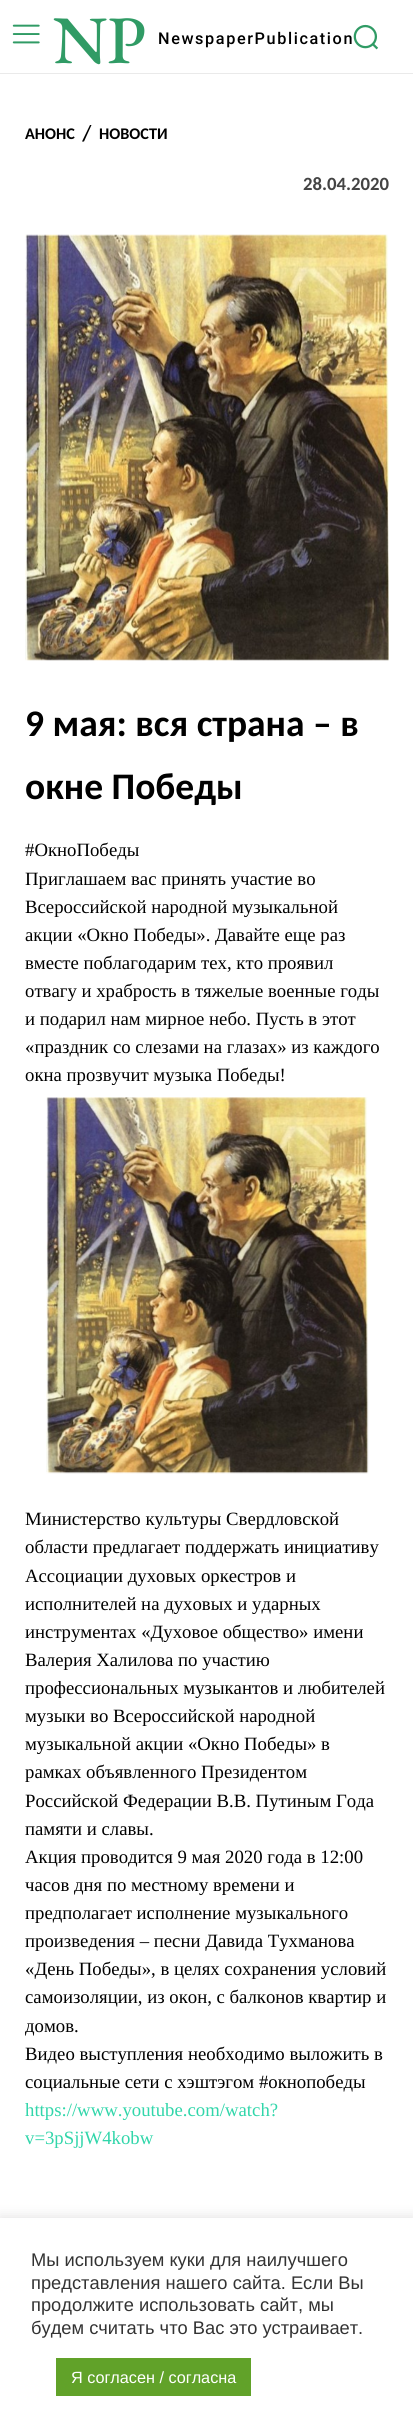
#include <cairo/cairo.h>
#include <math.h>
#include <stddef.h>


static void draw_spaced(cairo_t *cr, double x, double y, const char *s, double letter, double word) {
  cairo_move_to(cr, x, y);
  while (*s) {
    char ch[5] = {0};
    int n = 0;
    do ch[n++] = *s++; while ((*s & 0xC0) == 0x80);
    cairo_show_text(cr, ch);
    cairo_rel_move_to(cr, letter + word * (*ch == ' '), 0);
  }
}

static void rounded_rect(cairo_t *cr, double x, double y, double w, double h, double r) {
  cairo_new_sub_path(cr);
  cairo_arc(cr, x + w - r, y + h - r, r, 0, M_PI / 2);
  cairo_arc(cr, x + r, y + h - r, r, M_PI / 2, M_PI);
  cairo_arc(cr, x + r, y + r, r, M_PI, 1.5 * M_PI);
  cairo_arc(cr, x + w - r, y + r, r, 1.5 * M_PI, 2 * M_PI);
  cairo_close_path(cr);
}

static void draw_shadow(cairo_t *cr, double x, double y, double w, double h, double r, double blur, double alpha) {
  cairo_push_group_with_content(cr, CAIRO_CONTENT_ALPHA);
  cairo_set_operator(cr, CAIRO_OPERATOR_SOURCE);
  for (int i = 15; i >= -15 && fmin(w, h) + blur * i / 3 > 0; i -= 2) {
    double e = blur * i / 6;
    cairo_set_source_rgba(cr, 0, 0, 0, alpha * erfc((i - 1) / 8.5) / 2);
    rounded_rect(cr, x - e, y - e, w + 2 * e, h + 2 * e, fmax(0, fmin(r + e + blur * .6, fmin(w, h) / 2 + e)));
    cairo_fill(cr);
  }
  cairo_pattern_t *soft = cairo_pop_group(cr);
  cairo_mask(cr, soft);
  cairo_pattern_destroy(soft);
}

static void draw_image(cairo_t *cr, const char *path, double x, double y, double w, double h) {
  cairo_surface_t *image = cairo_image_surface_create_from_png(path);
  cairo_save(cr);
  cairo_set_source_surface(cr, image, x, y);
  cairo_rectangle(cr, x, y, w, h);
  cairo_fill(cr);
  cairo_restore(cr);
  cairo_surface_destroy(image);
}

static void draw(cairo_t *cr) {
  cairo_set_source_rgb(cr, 1, 1, 1);
  cairo_paint(cr);
  cairo_set_source_rgb(cr, 234 / 255.0, 234 / 255.0, 234 / 255.0);
  cairo_rectangle(cr, 0, 73, 413, 1);
  cairo_fill(cr);
  draw_image(cr, "images/1.png", 12, 24, 28, 20);
  draw_image(cr, "images/2.png", 353, 24, 26, 26);
  cairo_set_source_rgb(cr, 0, 0, 0);
  cairo_new_path(cr);
  cairo_move_to(cr, 90, 125);
  cairo_line_to(cr, 82, 141.5);
  cairo_line_to(cr, 84, 141.5);
  cairo_line_to(cr, 91.5, 125);
  cairo_close_path(cr);
  cairo_fill(cr);
  draw_image(cr, "images/3.png", 25, 234, 364, 427);
  draw_image(cr, "images/4.png", 46, 1097, 323, 377);
  cairo_set_source_rgb(cr, 172 / 255.0, 171 / 255.0, 171 / 255.0);
  draw_shadow(cr, 0, 2216, 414, 217, 0, 6, 0.3);
  cairo_set_source_rgb(cr, 1, 1, 1);
  cairo_rectangle(cr, 0, 2218, 413, 215);
  cairo_fill(cr);
  cairo_set_source_rgb(cr, 97 / 255.0, 162 / 255.0, 41 / 255.0);
  cairo_rectangle(cr, 56, 2358, 195, 38);
  cairo_fill(cr);
  cairo_select_font_face(cr, "EB Garamond Medium", CAIRO_FONT_SLANT_NORMAL, CAIRO_FONT_WEIGHT_NORMAL);
  cairo_set_font_size(cr, 68);
  cairo_set_source_rgb(cr, 48 / 255.0, 155 / 255.0, 101 / 255.0);
  cairo_move_to(cr, 53, 63);
  cairo_show_text(cr, "NP");
  cairo_select_font_face(cr, "Roboto Medium", CAIRO_FONT_SLANT_NORMAL, CAIRO_FONT_WEIGHT_NORMAL);
  cairo_set_font_size(cr, 16.25);
  cairo_set_source_rgb(cr, 0, 0, 0);
  draw_spaced(cr, 158, 44, "NewspaperPublication", 1.6, 0);
  cairo_select_font_face(cr, "Carlito", CAIRO_FONT_SLANT_NORMAL, CAIRO_FONT_WEIGHT_BOLD);
  cairo_move_to(cr, 25, 139);
  cairo_show_text(cr, "АНОНС");
  cairo_move_to(cr, 99, 139);
  cairo_show_text(cr, "НОВОСТИ");
  cairo_set_font_size(cr, 18.75);
  cairo_set_source_rgb(cr, 68 / 255.0, 68 / 255.0, 68 / 255.0);
  cairo_move_to(cr, 303, 190);
  cairo_show_text(cr, "28.04.2020");
  cairo_set_font_size(cr, 37.5);
  cairo_set_source_rgb(cr, 0, 0, 0);
  cairo_move_to(cr, 25, 736);
  cairo_show_text(cr, "9 мая: вся страна – в");
  cairo_move_to(cr, 25, 799);
  cairo_show_text(cr, "окне Победы");
  cairo_select_font_face(cr, "Liberation Serif", CAIRO_FONT_SLANT_NORMAL, CAIRO_FONT_WEIGHT_NORMAL);
  cairo_set_font_size(cr, 18.75);
  cairo_move_to(cr, 25, 856);
  cairo_show_text(cr, "#ОкноПобеды");
  cairo_move_to(cr, 25, 885);
  cairo_show_text(cr, "Приглашаем вас принять участие во");
  cairo_move_to(cr, 25, 913);
  cairo_show_text(cr, "Всероссийской народной музыкальной");
  cairo_move_to(cr, 25, 941);
  cairo_show_text(cr, "акции «Окно Победы». Давайте еще раз");
  cairo_move_to(cr, 25, 969);
  cairo_show_text(cr, "вместе поблагодарим тех, кто проявил");
  cairo_move_to(cr, 25, 997);
  cairo_show_text(cr, "отвагу и храбрость в тяжелые военные годы");
  cairo_move_to(cr, 25, 1025);
  cairo_show_text(cr, "и подарил нам мирное небо. Пусть в этот");
  cairo_move_to(cr, 25, 1053);
  cairo_show_text(cr, "«праздник со слезами на глазах» из каждого");
  cairo_move_to(cr, 25, 1081);
  cairo_show_text(cr, "окна прозвучит музыка Победы!");
  cairo_move_to(cr, 25, 1525);
  cairo_show_text(cr, "Министерство культуры Свердловской");
  cairo_move_to(cr, 25, 1553);
  cairo_show_text(cr, "области предлагает поддержать инициативу");
  cairo_move_to(cr, 25, 1582);
  cairo_show_text(cr, "Ассоциации духовых оркестров и");
  cairo_move_to(cr, 25, 1610);
  cairo_show_text(cr, "исполнителей на духовых и ударных");
  cairo_move_to(cr, 25, 1638);
  cairo_show_text(cr, "инструментах «Духовое общество» имени");
  cairo_move_to(cr, 25, 1666);
  cairo_show_text(cr, "Валерия Халилова по участию");
  cairo_move_to(cr, 25, 1694);
  cairo_show_text(cr, "профессиональных музыкантов и любителей");
  cairo_move_to(cr, 25, 1722);
  cairo_show_text(cr, "музыки во Всероссийской народной");
  cairo_move_to(cr, 25, 1750);
  cairo_show_text(cr, "музыкальной акции «Окно Победы» в");
  cairo_move_to(cr, 25, 1778);
  cairo_show_text(cr, "рамках объявленного Президентом");
  cairo_move_to(cr, 25, 1807);
  cairo_show_text(cr, "Российской Федерации В.В. Путиным Года");
  cairo_move_to(cr, 25, 1835);
  cairo_show_text(cr, "памяти и славы.");
  cairo_move_to(cr, 25, 1863);
  cairo_show_text(cr, "Акция проводится 9 мая 2020 года в 12:00");
  cairo_move_to(cr, 25, 1891);
  cairo_show_text(cr, "часов дня по местному времени и");
  cairo_move_to(cr, 25, 1919);
  cairo_show_text(cr, "предполагает исполнение музыкального");
  cairo_move_to(cr, 25, 1947);
  cairo_show_text(cr, "произведения – песни Давида Тухманова");
  cairo_move_to(cr, 25, 1975);
  cairo_show_text(cr, "«День Победы», в целях сохранения условий");
  cairo_move_to(cr, 25, 2003);
  cairo_show_text(cr, "самоизоляции, из окон, с балконов квартир и");
  cairo_move_to(cr, 25, 2032);
  cairo_show_text(cr, "домов.");
  cairo_move_to(cr, 25, 2060);
  cairo_show_text(cr, "Видео выступления необходимо выложить в");
  cairo_move_to(cr, 25, 2088);
  cairo_show_text(cr, "социальные сети с хэштэгом #окнопобеды");
  cairo_set_source_rgb(cr, 49 / 255.0, 214 / 255.0, 170 / 255.0);
  cairo_move_to(cr, 25, 2116);
  cairo_show_text(cr, "https://www.youtube.com/watch?");
  cairo_move_to(cr, 25, 2144);
  cairo_show_text(cr, "v=3pSjjW4kobw");
  cairo_select_font_face(cr, "Liberation Sans", CAIRO_FONT_SLANT_NORMAL, CAIRO_FONT_WEIGHT_NORMAL);
  cairo_set_font_size(cr, 18.3);
  cairo_set_source_rgb(cr, 51 / 255.0, 51 / 255.0, 51 / 255.0);
  cairo_move_to(cr, 31, 2266);
  cairo_show_text(cr, "Мы используем куки для наилучшего");
  cairo_move_to(cr, 31, 2289);
  cairo_show_text(cr, "представления нашего сайта. Если Вы");
  cairo_move_to(cr, 31, 2311);
  cairo_show_text(cr, "продолжите использовать сайт, мы");
  cairo_move_to(cr, 31, 2334);
  cairo_show_text(cr, "будем считать что Вас это устраивает.");
  cairo_set_font_size(cr, 16.25);
  cairo_set_source_rgb(cr, 1, 1, 1);
  cairo_move_to(cr, 71, 2383);
  cairo_show_text(cr, "Я согласен / согласна");
}

int main(void) {
  cairo_surface_t *surface = cairo_image_surface_create(CAIRO_FORMAT_RGB24, 413, 2433);
  cairo_t *cr = cairo_create(surface);
  cairo_font_options_t *options = cairo_font_options_create();
  cairo_font_options_set_hint_metrics(options, CAIRO_HINT_METRICS_OFF);
  cairo_font_options_set_hint_style(options, CAIRO_HINT_STYLE_NONE);
  cairo_set_font_options(cr, options);
  cairo_set_miter_limit(cr, 4);
  draw(cr);
  cairo_surface_write_to_png(surface, "out.png");
  cairo_font_options_destroy(options);
  cairo_destroy(cr);
  cairo_surface_destroy(surface);
  return 0;
}
